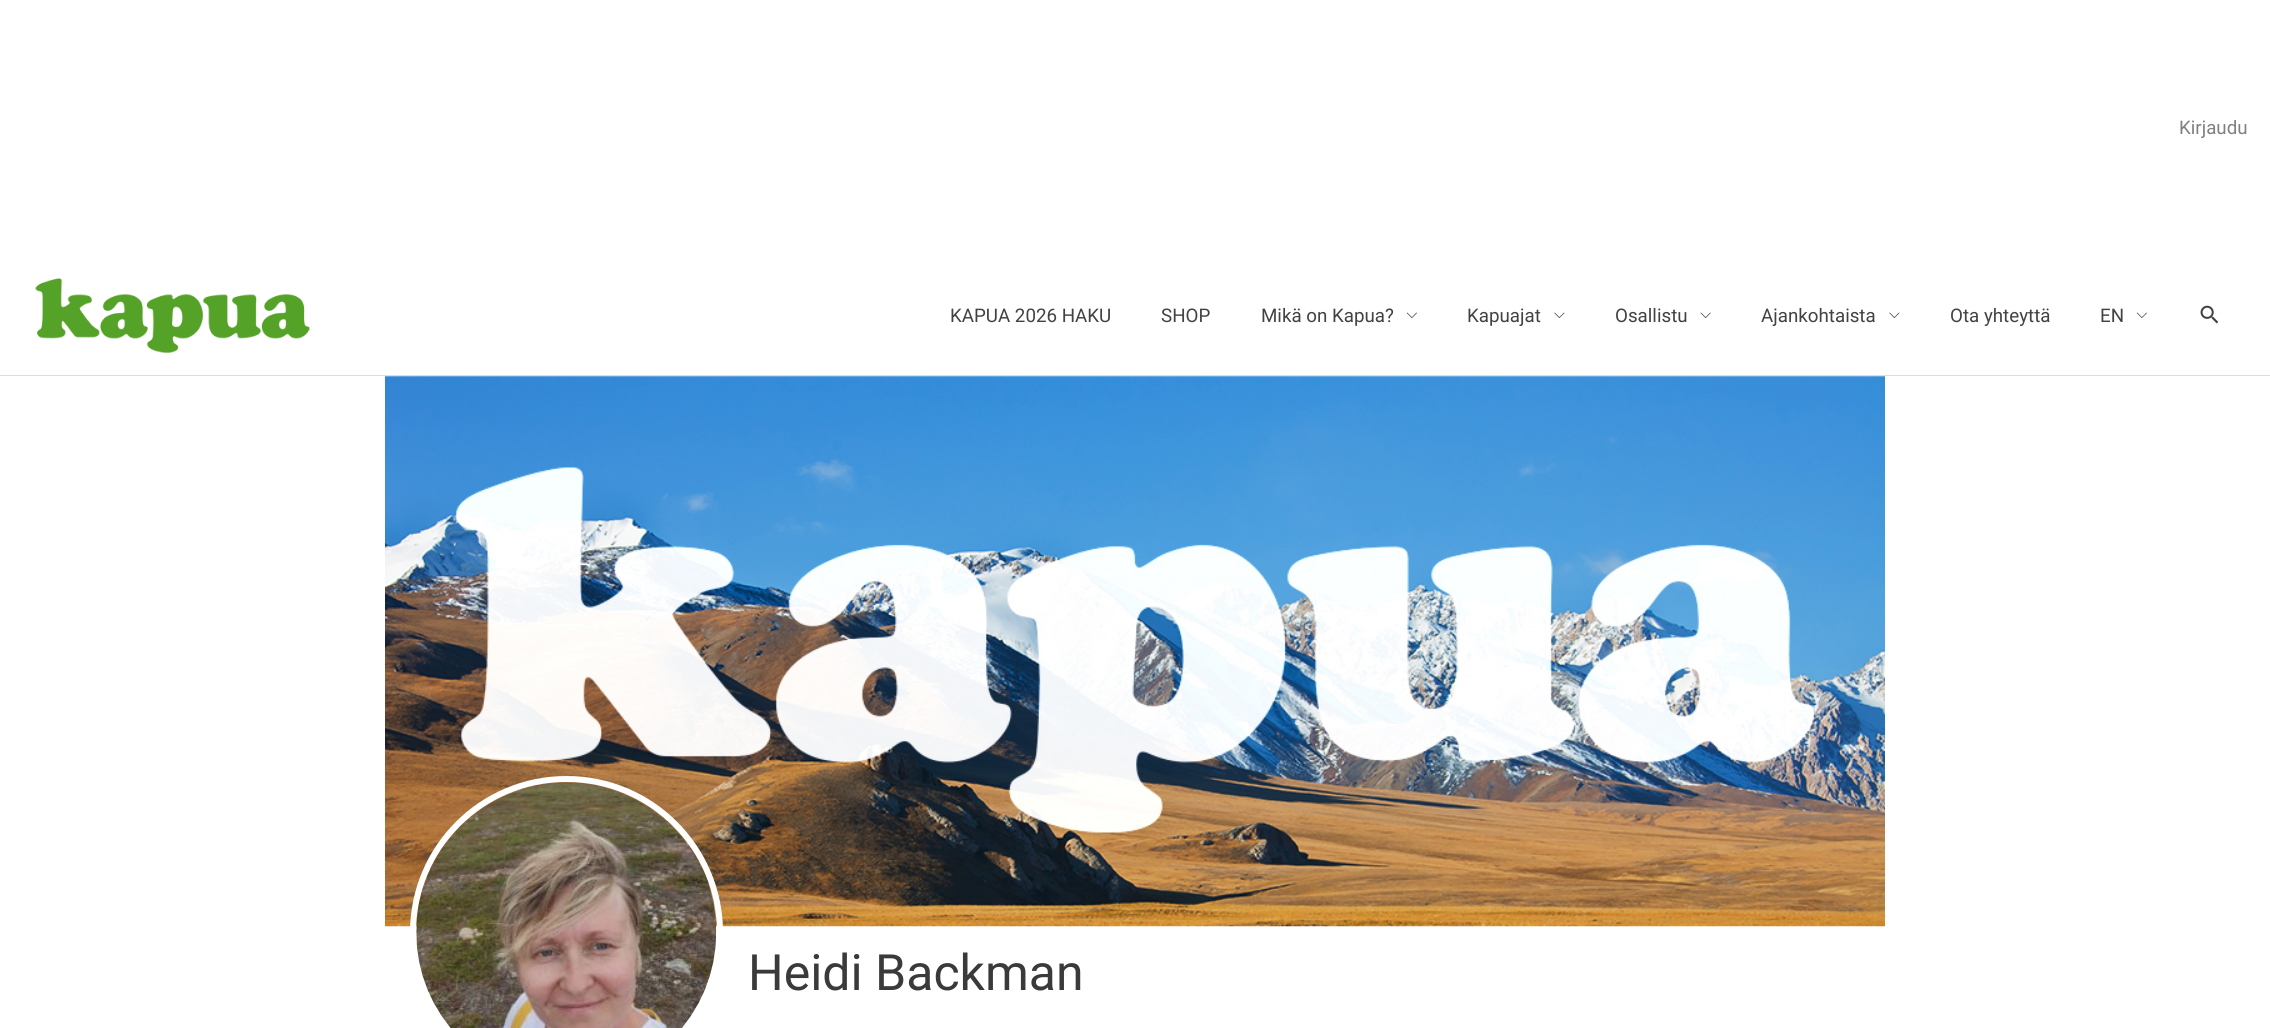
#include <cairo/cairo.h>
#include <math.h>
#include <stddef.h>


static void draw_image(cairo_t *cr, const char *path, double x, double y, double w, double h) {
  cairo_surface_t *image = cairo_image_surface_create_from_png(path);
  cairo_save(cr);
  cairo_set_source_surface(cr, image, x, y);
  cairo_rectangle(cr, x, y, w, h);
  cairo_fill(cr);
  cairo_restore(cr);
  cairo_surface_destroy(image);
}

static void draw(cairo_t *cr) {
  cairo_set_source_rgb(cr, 1, 1, 1);
  cairo_paint(cr);
  cairo_set_source_rgb(cr, 221 / 255.0, 221 / 255.0, 221 / 255.0);
  cairo_rectangle(cr, 0, 375, 2270, 1);
  cairo_fill(cr);
  draw_image(cr, "images/1.png", 35, 278, 275, 75);
  draw_image(cr, "images/2.png", 1406, 312, 11, 6);
  draw_image(cr, "images/3.png", 1554, 312, 11, 6);
  draw_image(cr, "images/4.png", 1700, 312, 11, 6);
  draw_image(cr, "images/3.png", 1889, 312, 11, 6);
  draw_image(cr, "images/2.png", 2136, 312, 11, 6);
  draw_image(cr, "images/5.png", 2200, 305, 19, 19);
  draw_image(cr, "images/6.png", 385, 376, 1500, 551);
  cairo_arc(cr, 566.5, 932.5, 153.5, 0, 2 * M_PI);
  cairo_set_source_rgb(cr, 1, 1, 1);
  cairo_set_line_width(cr, 6);
  cairo_stroke(cr);
  draw_image(cr, "images/7.png", 416, 782, 301, 246);
  cairo_select_font_face(cr, "Roboto", CAIRO_FONT_SLANT_NORMAL, CAIRO_FONT_WEIGHT_NORMAL);
  cairo_set_font_size(cr, 18.75);
  cairo_set_source_rgb(cr, 128 / 255.0, 128 / 255.0, 128 / 255.0);
  cairo_move_to(cr, 2179, 134);
  cairo_show_text(cr, "Kirjaudu");
  cairo_set_source_rgb(cr, 66 / 255.0, 66 / 255.0, 66 / 255.0);
  cairo_move_to(cr, 950, 322);
  cairo_show_text(cr, "KAPUA 2026 HAKU");
  cairo_move_to(cr, 1161, 322);
  cairo_show_text(cr, "SHOP");
  cairo_move_to(cr, 1261, 322);
  cairo_show_text(cr, "Mikä on Kapua?");
  cairo_move_to(cr, 1467, 322);
  cairo_show_text(cr, "Kapuajat");
  cairo_move_to(cr, 1615, 322);
  cairo_show_text(cr, "Osallistu");
  cairo_move_to(cr, 1761, 322);
  cairo_show_text(cr, "Ajankohtaista");
  cairo_move_to(cr, 1950, 322);
  cairo_show_text(cr, "Ota yhteyttä");
  cairo_move_to(cr, 2100, 322);
  cairo_show_text(cr, "EN");
  cairo_set_font_size(cr, 50);
  cairo_set_source_rgb(cr, 58 / 255.0, 58 / 255.0, 58 / 255.0);
  cairo_move_to(cr, 748, 990);
  cairo_show_text(cr, "Heidi Backman");
}

int main(void) {
  cairo_surface_t *surface = cairo_image_surface_create(CAIRO_FORMAT_RGB24, 2270, 1028);
  cairo_t *cr = cairo_create(surface);
  cairo_font_options_t *options = cairo_font_options_create();
  cairo_font_options_set_hint_metrics(options, CAIRO_HINT_METRICS_OFF);
  cairo_font_options_set_hint_style(options, CAIRO_HINT_STYLE_NONE);
  cairo_set_font_options(cr, options);
  cairo_set_miter_limit(cr, 4);
  draw(cr);
  cairo_surface_write_to_png(surface, "out.png");
  cairo_font_options_destroy(options);
  cairo_destroy(cr);
  cairo_surface_destroy(surface);
  return 0;
}
